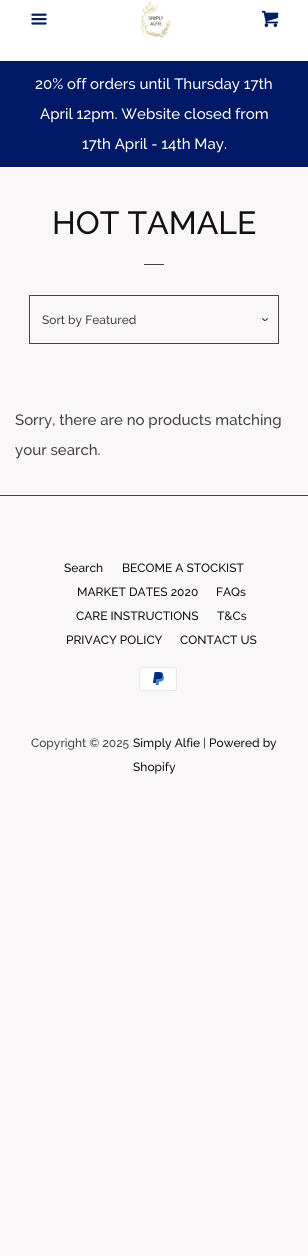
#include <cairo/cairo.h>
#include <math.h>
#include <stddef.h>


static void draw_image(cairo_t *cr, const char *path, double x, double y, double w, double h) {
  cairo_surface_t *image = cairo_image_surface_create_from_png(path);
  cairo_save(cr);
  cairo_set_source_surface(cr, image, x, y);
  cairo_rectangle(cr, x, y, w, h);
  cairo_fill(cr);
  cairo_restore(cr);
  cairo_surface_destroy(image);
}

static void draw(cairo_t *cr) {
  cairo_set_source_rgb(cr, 1, 1, 1);
  cairo_paint(cr);
  draw_image(cr, "images/1.png", 31, 13, 16, 12);
  draw_image(cr, "images/2.png", 140, 1, 31, 37);
  draw_image(cr, "images/3.png", 261, 10, 18, 17);
  cairo_set_source_rgb(cr, 250 / 255.0, 247 / 255.0, 249 / 255.0);
  cairo_rectangle(cr, 0, 167, 308, 1089);
  cairo_fill(cr);
  cairo_set_source_rgb(cr, 0, 25 / 255.0, 102 / 255.0);
  cairo_rectangle(cr, 0, 61, 308, 106);
  cairo_fill(cr);
  cairo_set_source_rgb(cr, 68 / 255.0, 68 / 255.0, 68 / 255.0);
  cairo_rectangle(cr, 144, 264, 20, 1);
  cairo_fill(cr);
  draw_image(cr, "images/4.png", 262, 318, 6, 3);
  cairo_rectangle(cr, 29.5, 295.5, 249, 48);
  cairo_set_line_width(cr, 1);
  cairo_stroke(cr);
  cairo_rectangle(cr, 0, 495, 308, 1);
  cairo_fill(cr);
  draw_image(cr, "images/5.png", 139, 667, 38, 24);
  cairo_select_font_face(cr, "Raleway Medium", CAIRO_FONT_SLANT_NORMAL, CAIRO_FONT_WEIGHT_NORMAL);
  cairo_set_font_size(cr, 15);
  cairo_set_source_rgb(cr, 1, 1, 1);
  cairo_move_to(cr, 35, 89);
  cairo_show_text(cr, "20% off orders until Thursday 17th");
  cairo_move_to(cr, 40, 119);
  cairo_show_text(cr, "April 12pm. Website closed from");
  cairo_move_to(cr, 82, 149);
  cairo_show_text(cr, "17th April - 14th May.");
  cairo_set_font_size(cr, 32);
  cairo_set_source_rgb(cr, 17 / 255.0, 17 / 255.0, 17 / 255.0);
  cairo_move_to(cr, 52, 234);
  cairo_show_text(cr, "HOT TAMALE");
  cairo_set_font_size(cr, 12);
  cairo_set_source_rgb(cr, 68 / 255.0, 68 / 255.0, 68 / 255.0);
  cairo_move_to(cr, 42, 324);
  cairo_show_text(cr, "Sort by Featured");
  cairo_set_font_size(cr, 15);
  cairo_move_to(cr, 15, 425);
  cairo_show_text(cr, "Sorry, there are no products matching");
  cairo_move_to(cr, 15, 455);
  cairo_show_text(cr, "your search.");
  cairo_set_font_size(cr, 12);
  cairo_set_source_rgb(cr, 17 / 255.0, 17 / 255.0, 17 / 255.0);
  cairo_move_to(cr, 64, 572);
  cairo_show_text(cr, "Search");
  cairo_move_to(cr, 122, 572);
  cairo_show_text(cr, "BECOME A STOCKIST");
  cairo_move_to(cr, 77, 596);
  cairo_show_text(cr, "MARKET DATES 2020");
  cairo_move_to(cr, 216, 596);
  cairo_show_text(cr, "FAQs");
  cairo_move_to(cr, 76, 620);
  cairo_show_text(cr, "CARE INSTRUCTIONS");
  cairo_move_to(cr, 217, 620);
  cairo_show_text(cr, "T&Cs");
  cairo_move_to(cr, 66, 644);
  cairo_show_text(cr, "PRIVACY POLICY");
  cairo_move_to(cr, 180, 644);
  cairo_show_text(cr, "CONTACT US");
  cairo_set_source_rgb(cr, 68 / 255.0, 68 / 255.0, 68 / 255.0);
  cairo_move_to(cr, 31, 747);
  cairo_show_text(cr, "Copyright © 2025");
  cairo_set_source_rgb(cr, 17 / 255.0, 17 / 255.0, 17 / 255.0);
  cairo_move_to(cr, 133, 747);
  cairo_show_text(cr, "Simply Alfie");
  cairo_set_source_rgb(cr, 68 / 255.0, 68 / 255.0, 68 / 255.0);
  cairo_move_to(cr, 203, 747);
  cairo_show_text(cr, "|");
  cairo_set_source_rgb(cr, 17 / 255.0, 17 / 255.0, 17 / 255.0);
  cairo_move_to(cr, 209, 747);
  cairo_show_text(cr, "Powered by");
  cairo_move_to(cr, 133, 771);
  cairo_show_text(cr, "Shopify");
}

int main(void) {
  cairo_surface_t *surface = cairo_image_surface_create(CAIRO_FORMAT_RGB24, 308, 1256);
  cairo_t *cr = cairo_create(surface);
  cairo_font_options_t *options = cairo_font_options_create();
  cairo_font_options_set_hint_metrics(options, CAIRO_HINT_METRICS_OFF);
  cairo_font_options_set_hint_style(options, CAIRO_HINT_STYLE_NONE);
  cairo_set_font_options(cr, options);
  cairo_set_miter_limit(cr, 4);
  draw(cr);
  cairo_surface_write_to_png(surface, "out.png");
  cairo_font_options_destroy(options);
  cairo_destroy(cr);
  cairo_surface_destroy(surface);
  return 0;
}
